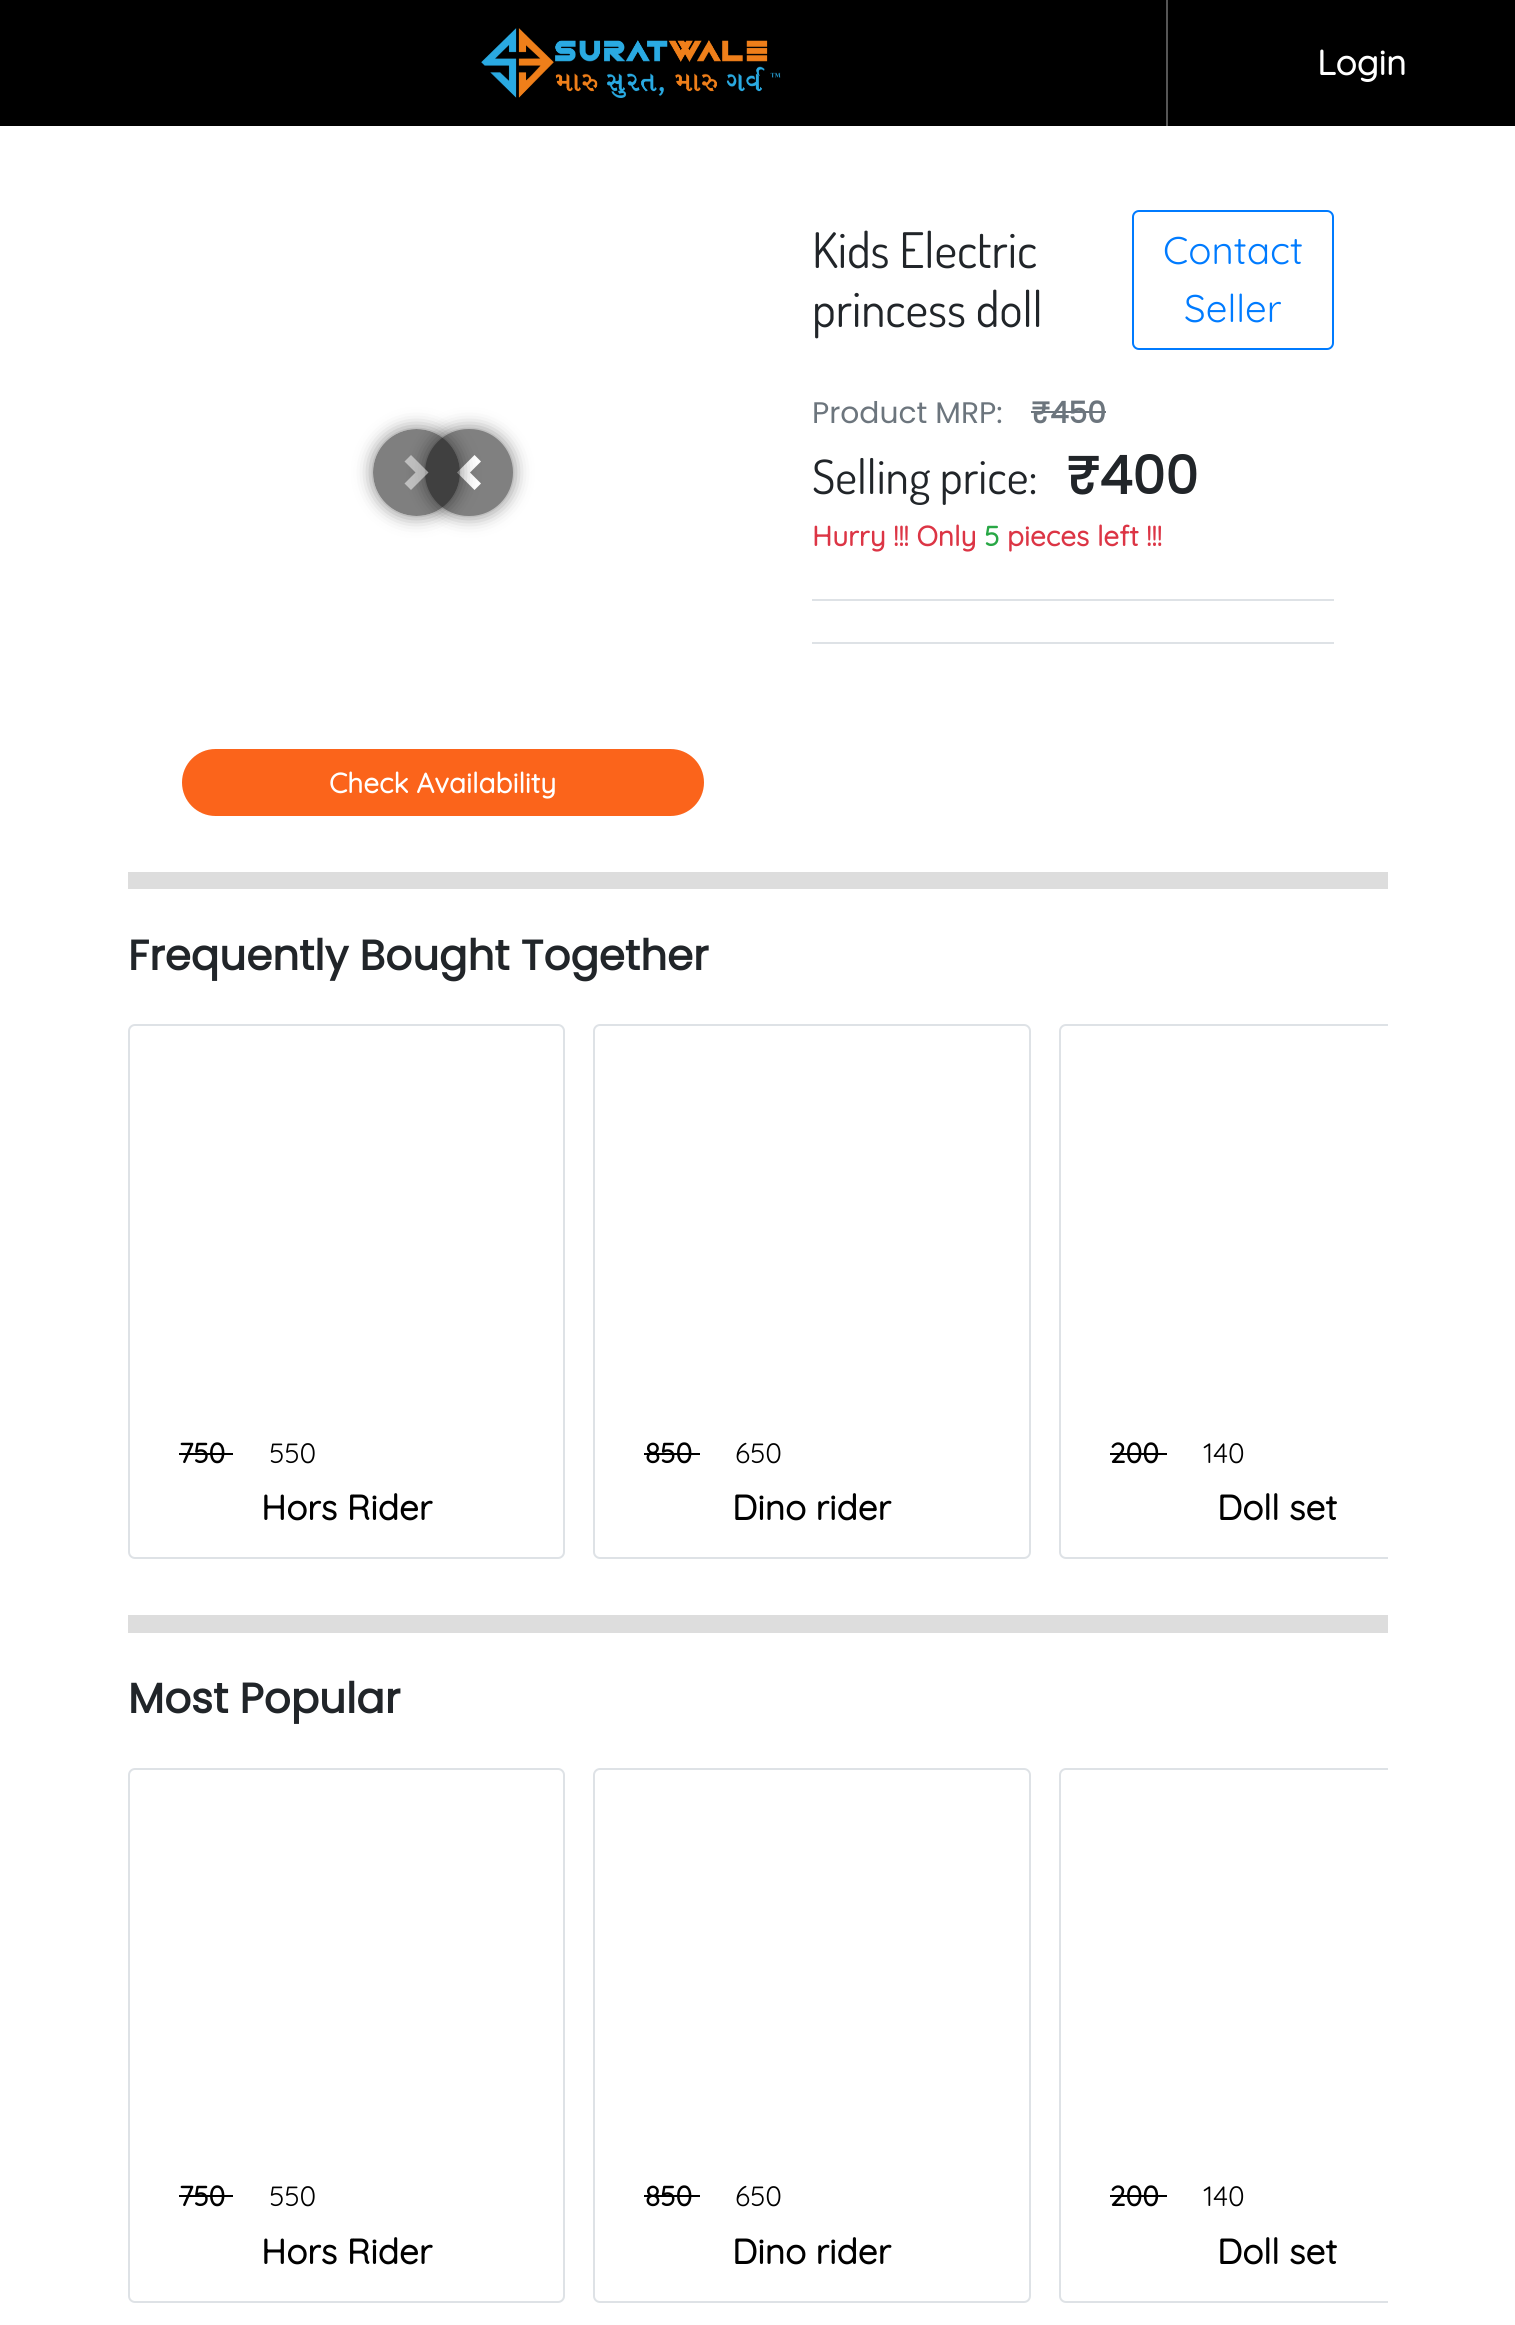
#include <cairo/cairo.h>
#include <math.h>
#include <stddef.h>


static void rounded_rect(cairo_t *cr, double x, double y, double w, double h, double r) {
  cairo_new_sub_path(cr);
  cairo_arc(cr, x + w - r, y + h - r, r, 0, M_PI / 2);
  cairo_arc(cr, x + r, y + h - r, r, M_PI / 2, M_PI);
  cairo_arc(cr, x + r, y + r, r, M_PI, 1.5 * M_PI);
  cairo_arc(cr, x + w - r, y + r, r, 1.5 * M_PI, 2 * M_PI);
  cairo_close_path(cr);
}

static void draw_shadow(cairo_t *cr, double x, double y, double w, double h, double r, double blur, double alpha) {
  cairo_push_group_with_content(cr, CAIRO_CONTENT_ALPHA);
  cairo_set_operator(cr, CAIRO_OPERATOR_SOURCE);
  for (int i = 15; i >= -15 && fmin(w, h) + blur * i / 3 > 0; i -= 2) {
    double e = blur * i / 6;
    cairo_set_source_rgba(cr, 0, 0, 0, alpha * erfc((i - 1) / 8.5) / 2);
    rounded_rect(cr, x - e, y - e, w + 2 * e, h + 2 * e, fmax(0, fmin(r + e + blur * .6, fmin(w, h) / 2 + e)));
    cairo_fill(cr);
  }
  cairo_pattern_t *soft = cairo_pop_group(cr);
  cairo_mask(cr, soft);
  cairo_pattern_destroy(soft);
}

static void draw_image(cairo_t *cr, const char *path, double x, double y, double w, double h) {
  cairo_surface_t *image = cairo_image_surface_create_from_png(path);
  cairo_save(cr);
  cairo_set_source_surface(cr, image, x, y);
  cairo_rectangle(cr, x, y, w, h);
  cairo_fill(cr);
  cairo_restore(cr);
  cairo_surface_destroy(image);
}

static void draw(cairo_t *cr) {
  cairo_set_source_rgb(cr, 1, 1, 1);
  cairo_paint(cr);
  cairo_set_source_rgb(cr, 0, 0, 0);
  cairo_rectangle(cr, 0, 0, 1515, 126);
  cairo_fill(cr);
  draw_image(cr, "images/1.png", 481, 28, 300, 70);
  cairo_set_source_rgb(cr, 85 / 255.0, 85 / 255.0, 85 / 255.0);
  cairo_rectangle(cr, 1166, 0, 2, 126);
  cairo_fill(cr);
  rounded_rect(cr, 1133, 211, 200, 138, 6);
  cairo_set_source_rgb(cr, 0, 123 / 255.0, 1);
  cairo_stroke(cr);
  cairo_set_source_rgb(cr, 108 / 255.0, 117 / 255.0, 125 / 255.0);
  cairo_rectangle(cr, 1031, 411, 75, 2);
  cairo_fill(cr);
  cairo_set_source_rgb(cr, 222 / 255.0, 226 / 255.0, 230 / 255.0);
  cairo_rectangle(cr, 812, 599, 522, 2);
  cairo_fill(cr);
  cairo_rectangle(cr, 812, 642, 522, 2);
  cairo_fill(cr);
  cairo_set_source_rgb(cr, 128 / 255.0, 128 / 255.0, 128 / 255.0);
  draw_shadow(cr, 425, 429, 88, 87, 43.5, 9, 1);
  cairo_set_source_rgb(cr, 128 / 255.0, 128 / 255.0, 128 / 255.0);
  rounded_rect(cr, 425, 429, 88, 87, 43.5);
  cairo_fill(cr);
  cairo_set_source_rgb(cr, 1, 1, 1);
  cairo_new_path(cr);
  cairo_move_to(cr, 474.5, 455);
  cairo_line_to(cr, 457, 472.5);
  cairo_line_to(cr, 474.5, 490);
  cairo_line_to(cr, 481, 483.5);
  cairo_line_to(cr, 470, 472.5);
  cairo_line_to(cr, 481, 461.5);
  cairo_close_path(cr);
  cairo_fill(cr);
  cairo_save(cr);
  cairo_set_fill_rule(cr, CAIRO_FILL_RULE_EVEN_ODD);
  cairo_new_path(cr);
  cairo_move_to(cr, 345, 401);
  cairo_line_to(cr, 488, 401);
  cairo_line_to(cr, 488, 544);
  cairo_line_to(cr, 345, 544);
  cairo_close_path(cr);
  cairo_move_to(cr, 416.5, 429);
  cairo_curve_to(cr, 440.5, 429, 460, 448.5, 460, 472.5);
  cairo_curve_to(cr, 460, 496.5, 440.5, 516, 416.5, 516);
  cairo_curve_to(cr, 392.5, 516, 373, 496.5, 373, 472.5);
  cairo_curve_to(cr, 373, 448.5, 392.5, 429, 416.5, 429);
  cairo_close_path(cr);
  cairo_clip(cr);
  cairo_set_source_rgb(cr, 0, 0, 0);
  draw_shadow(cr, 373, 429, 87, 87, 43.5, 9, 0.5);
  cairo_restore(cr);
  cairo_set_source_rgba(cr, 0, 0, 0, 0.5);
  cairo_arc(cr, 416.5, 472.5, 43.5, 0, 2 * M_PI);
  cairo_fill(cr);
  cairo_set_source_rgba(cr, 1, 1, 1, 0.5);
  cairo_new_path(cr);
  cairo_move_to(cr, 411, 455);
  cairo_line_to(cr, 404.5, 461.5);
  cairo_line_to(cr, 415.5, 472.5);
  cairo_line_to(cr, 404.5, 483.5);
  cairo_line_to(cr, 411, 490);
  cairo_line_to(cr, 428.5, 472.5);
  cairo_close_path(cr);
  cairo_fill(cr);
  cairo_set_source_rgb(cr, 251 / 255.0, 100 / 255.0, 27 / 255.0);
  rounded_rect(cr, 182, 749, 522, 67, 33.5);
  cairo_fill(cr);
  cairo_set_source_rgb(cr, 221 / 255.0, 221 / 255.0, 221 / 255.0);
  cairo_rectangle(cr, 128, 872, 1260, 17);
  cairo_fill(cr);
  rounded_rect(cr, 129, 1025, 435, 533, 6);
  cairo_set_source_rgb(cr, 222 / 255.0, 226 / 255.0, 230 / 255.0);
  cairo_stroke(cr);
  cairo_set_source_rgb(cr, 0, 0, 0);
  cairo_rectangle(cr, 179, 1453, 54, 2);
  cairo_fill(cr);
  rounded_rect(cr, 594, 1025, 436, 533, 6);
  cairo_set_source_rgb(cr, 222 / 255.0, 226 / 255.0, 230 / 255.0);
  cairo_stroke(cr);
  cairo_set_source_rgb(cr, 0, 0, 0);
  cairo_rectangle(cr, 644, 1453, 56, 2);
  cairo_fill(cr);
  cairo_save(cr);
  cairo_rectangle(cr, 128, 1010, 1260, 563);
  cairo_clip(cr);
  rounded_rect(cr, 1060, 1025, 435, 533, 6);
  cairo_set_source_rgb(cr, 222 / 255.0, 226 / 255.0, 230 / 255.0);
  cairo_stroke(cr);
  cairo_restore(cr);
  cairo_rectangle(cr, 1110, 1453, 57, 2);
  cairo_fill(cr);
  cairo_set_source_rgb(cr, 221 / 255.0, 221 / 255.0, 221 / 255.0);
  cairo_rectangle(cr, 128, 1615, 1260, 18);
  cairo_fill(cr);
  rounded_rect(cr, 129, 1769, 435, 533, 6);
  cairo_set_source_rgb(cr, 222 / 255.0, 226 / 255.0, 230 / 255.0);
  cairo_stroke(cr);
  cairo_set_source_rgb(cr, 0, 0, 0);
  cairo_rectangle(cr, 179, 2195, 54, 2);
  cairo_fill(cr);
  rounded_rect(cr, 594, 1769, 436, 533, 6);
  cairo_set_source_rgb(cr, 222 / 255.0, 226 / 255.0, 230 / 255.0);
  cairo_stroke(cr);
  cairo_set_source_rgb(cr, 0, 0, 0);
  cairo_rectangle(cr, 644, 2195, 56, 2);
  cairo_fill(cr);
  cairo_save(cr);
  cairo_rectangle(cr, 128, 1754, 1260, 563);
  cairo_clip(cr);
  rounded_rect(cr, 1060, 1769, 435, 533, 6);
  cairo_set_source_rgb(cr, 222 / 255.0, 226 / 255.0, 230 / 255.0);
  cairo_stroke(cr);
  cairo_restore(cr);
  cairo_rectangle(cr, 1110, 2195, 57, 2);
  cairo_fill(cr);
  cairo_select_font_face(cr, "Quicksand", CAIRO_FONT_SLANT_NORMAL, CAIRO_FONT_WEIGHT_BOLD);
  cairo_set_font_size(cr, 35);
  cairo_set_source_rgb(cr, 1, 1, 1);
  cairo_move_to(cr, 1317, 75);
  cairo_show_text(cr, "Login");
  cairo_select_font_face(cr, "Dosis", CAIRO_FONT_SLANT_NORMAL, CAIRO_FONT_WEIGHT_NORMAL);
  cairo_set_font_size(cr, 49);
  cairo_set_source_rgb(cr, 33 / 255.0, 37 / 255.0, 41 / 255.0);
  cairo_move_to(cr, 812, 268);
  cairo_show_text(cr, "Kids Electric");
  cairo_select_font_face(cr, "Quicksand Light", CAIRO_FONT_SLANT_NORMAL, CAIRO_FONT_WEIGHT_NORMAL);
  cairo_set_font_size(cr, 38.5);
  cairo_set_source_rgb(cr, 0, 123 / 255.0, 1);
  cairo_move_to(cr, 1163, 264);
  cairo_show_text(cr, "Contact");
  cairo_move_to(cr, 1184, 322);
  cairo_show_text(cr, "Seller");
  cairo_select_font_face(cr, "Dosis", CAIRO_FONT_SLANT_NORMAL, CAIRO_FONT_WEIGHT_NORMAL);
  cairo_set_font_size(cr, 49);
  cairo_set_source_rgb(cr, 33 / 255.0, 37 / 255.0, 41 / 255.0);
  cairo_move_to(cr, 812, 327);
  cairo_show_text(cr, "princess doll");
  cairo_select_font_face(cr, "Poppins", CAIRO_FONT_SLANT_NORMAL, CAIRO_FONT_WEIGHT_NORMAL);
  cairo_set_font_size(cr, 29.75);
  cairo_set_source_rgb(cr, 108 / 255.0, 117 / 255.0, 125 / 255.0);
  cairo_move_to(cr, 812, 423);
  cairo_show_text(cr, "Product MRP:");
  cairo_select_font_face(cr, "Poppins", CAIRO_FONT_SLANT_NORMAL, CAIRO_FONT_WEIGHT_BOLD);
  cairo_move_to(cr, 1031, 423);
  cairo_show_text(cr, "₹450");
  cairo_select_font_face(cr, "Dosis", CAIRO_FONT_SLANT_NORMAL, CAIRO_FONT_WEIGHT_NORMAL);
  cairo_set_font_size(cr, 47.25);
  cairo_set_source_rgb(cr, 33 / 255.0, 37 / 255.0, 41 / 255.0);
  cairo_move_to(cr, 812, 494);
  cairo_show_text(cr, "Selling price:");
  cairo_select_font_face(cr, "Poppins", CAIRO_FONT_SLANT_NORMAL, CAIRO_FONT_WEIGHT_BOLD);
  cairo_set_font_size(cr, 52.5);
  cairo_move_to(cr, 1066, 494);
  cairo_show_text(cr, "₹400");
  cairo_select_font_face(cr, "Quicksand", CAIRO_FONT_SLANT_NORMAL, CAIRO_FONT_WEIGHT_BOLD);
  cairo_set_font_size(cr, 28);
  cairo_set_source_rgb(cr, 220 / 255.0, 53 / 255.0, 69 / 255.0);
  cairo_move_to(cr, 812, 546);
  cairo_show_text(cr, "Hurry !!! Only");
  cairo_set_source_rgb(cr, 40 / 255.0, 167 / 255.0, 69 / 255.0);
  cairo_move_to(cr, 984, 546);
  cairo_show_text(cr, "5");
  cairo_set_source_rgb(cr, 220 / 255.0, 53 / 255.0, 69 / 255.0);
  cairo_move_to(cr, 1007, 546);
  cairo_show_text(cr, "pieces left !!!");
  cairo_set_source_rgb(cr, 1, 1, 1);
  cairo_move_to(cr, 329, 793);
  cairo_show_text(cr, "Check Availability");
  cairo_select_font_face(cr, "Poppins", CAIRO_FONT_SLANT_NORMAL, CAIRO_FONT_WEIGHT_BOLD);
  cairo_set_font_size(cr, 42);
  cairo_set_source_rgb(cr, 33 / 255.0, 37 / 255.0, 41 / 255.0);
  cairo_move_to(cr, 128, 970);
  cairo_show_text(cr, "Frequently Bought Together");
  cairo_select_font_face(cr, "Quicksand", CAIRO_FONT_SLANT_NORMAL, CAIRO_FONT_WEIGHT_BOLD);
  cairo_set_font_size(cr, 28);
  cairo_set_source_rgb(cr, 0, 0, 0);
  cairo_move_to(cr, 179, 1463);
  cairo_show_text(cr, "750");
  cairo_select_font_face(cr, "Quicksand Light", CAIRO_FONT_SLANT_NORMAL, CAIRO_FONT_WEIGHT_NORMAL);
  cairo_move_to(cr, 269, 1463);
  cairo_show_text(cr, "550");
  cairo_select_font_face(cr, "Quicksand", CAIRO_FONT_SLANT_NORMAL, CAIRO_FONT_WEIGHT_BOLD);
  cairo_set_font_size(cr, 35);
  cairo_move_to(cr, 261, 1520);
  cairo_show_text(cr, "Hors Rider");
  cairo_set_font_size(cr, 28);
  cairo_move_to(cr, 645, 1463);
  cairo_show_text(cr, "850");
  cairo_select_font_face(cr, "Quicksand Light", CAIRO_FONT_SLANT_NORMAL, CAIRO_FONT_WEIGHT_NORMAL);
  cairo_move_to(cr, 735, 1463);
  cairo_show_text(cr, "650");
  cairo_select_font_face(cr, "Quicksand", CAIRO_FONT_SLANT_NORMAL, CAIRO_FONT_WEIGHT_BOLD);
  cairo_set_font_size(cr, 35);
  cairo_move_to(cr, 732, 1520);
  cairo_show_text(cr, "Dino rider");
  cairo_set_font_size(cr, 28);
  cairo_move_to(cr, 1110, 1463);
  cairo_show_text(cr, "200");
  cairo_select_font_face(cr, "Quicksand Light", CAIRO_FONT_SLANT_NORMAL, CAIRO_FONT_WEIGHT_NORMAL);
  cairo_move_to(cr, 1203, 1463);
  cairo_show_text(cr, "140");
  cairo_select_font_face(cr, "Quicksand", CAIRO_FONT_SLANT_NORMAL, CAIRO_FONT_WEIGHT_BOLD);
  cairo_set_font_size(cr, 35);
  cairo_move_to(cr, 1217, 1520);
  cairo_show_text(cr, "Doll set");
  cairo_select_font_face(cr, "Poppins", CAIRO_FONT_SLANT_NORMAL, CAIRO_FONT_WEIGHT_BOLD);
  cairo_set_font_size(cr, 42);
  cairo_set_source_rgb(cr, 33 / 255.0, 37 / 255.0, 41 / 255.0);
  cairo_move_to(cr, 128, 1713);
  cairo_show_text(cr, "Most Popular");
  cairo_select_font_face(cr, "Quicksand", CAIRO_FONT_SLANT_NORMAL, CAIRO_FONT_WEIGHT_BOLD);
  cairo_set_font_size(cr, 28);
  cairo_set_source_rgb(cr, 0, 0, 0);
  cairo_move_to(cr, 179, 2206);
  cairo_show_text(cr, "750");
  cairo_select_font_face(cr, "Quicksand Light", CAIRO_FONT_SLANT_NORMAL, CAIRO_FONT_WEIGHT_NORMAL);
  cairo_move_to(cr, 269, 2206);
  cairo_show_text(cr, "550");
  cairo_select_font_face(cr, "Quicksand", CAIRO_FONT_SLANT_NORMAL, CAIRO_FONT_WEIGHT_BOLD);
  cairo_set_font_size(cr, 35);
  cairo_move_to(cr, 261, 2264);
  cairo_show_text(cr, "Hors Rider");
  cairo_set_font_size(cr, 28);
  cairo_move_to(cr, 645, 2206);
  cairo_show_text(cr, "850");
  cairo_select_font_face(cr, "Quicksand Light", CAIRO_FONT_SLANT_NORMAL, CAIRO_FONT_WEIGHT_NORMAL);
  cairo_move_to(cr, 735, 2206);
  cairo_show_text(cr, "650");
  cairo_select_font_face(cr, "Quicksand", CAIRO_FONT_SLANT_NORMAL, CAIRO_FONT_WEIGHT_BOLD);
  cairo_set_font_size(cr, 35);
  cairo_move_to(cr, 732, 2264);
  cairo_show_text(cr, "Dino rider");
  cairo_set_font_size(cr, 28);
  cairo_move_to(cr, 1110, 2206);
  cairo_show_text(cr, "200");
  cairo_select_font_face(cr, "Quicksand Light", CAIRO_FONT_SLANT_NORMAL, CAIRO_FONT_WEIGHT_NORMAL);
  cairo_move_to(cr, 1203, 2206);
  cairo_show_text(cr, "140");
  cairo_select_font_face(cr, "Quicksand", CAIRO_FONT_SLANT_NORMAL, CAIRO_FONT_WEIGHT_BOLD);
  cairo_set_font_size(cr, 35);
  cairo_move_to(cr, 1217, 2264);
  cairo_show_text(cr, "Doll set");
}

int main(void) {
  cairo_surface_t *surface = cairo_image_surface_create(CAIRO_FORMAT_RGB24, 1515, 2325);
  cairo_t *cr = cairo_create(surface);
  cairo_font_options_t *options = cairo_font_options_create();
  cairo_font_options_set_hint_metrics(options, CAIRO_HINT_METRICS_OFF);
  cairo_font_options_set_hint_style(options, CAIRO_HINT_STYLE_NONE);
  cairo_set_font_options(cr, options);
  cairo_set_miter_limit(cr, 4);
  draw(cr);
  cairo_surface_write_to_png(surface, "out.png");
  cairo_font_options_destroy(options);
  cairo_destroy(cr);
  cairo_surface_destroy(surface);
  return 0;
}
